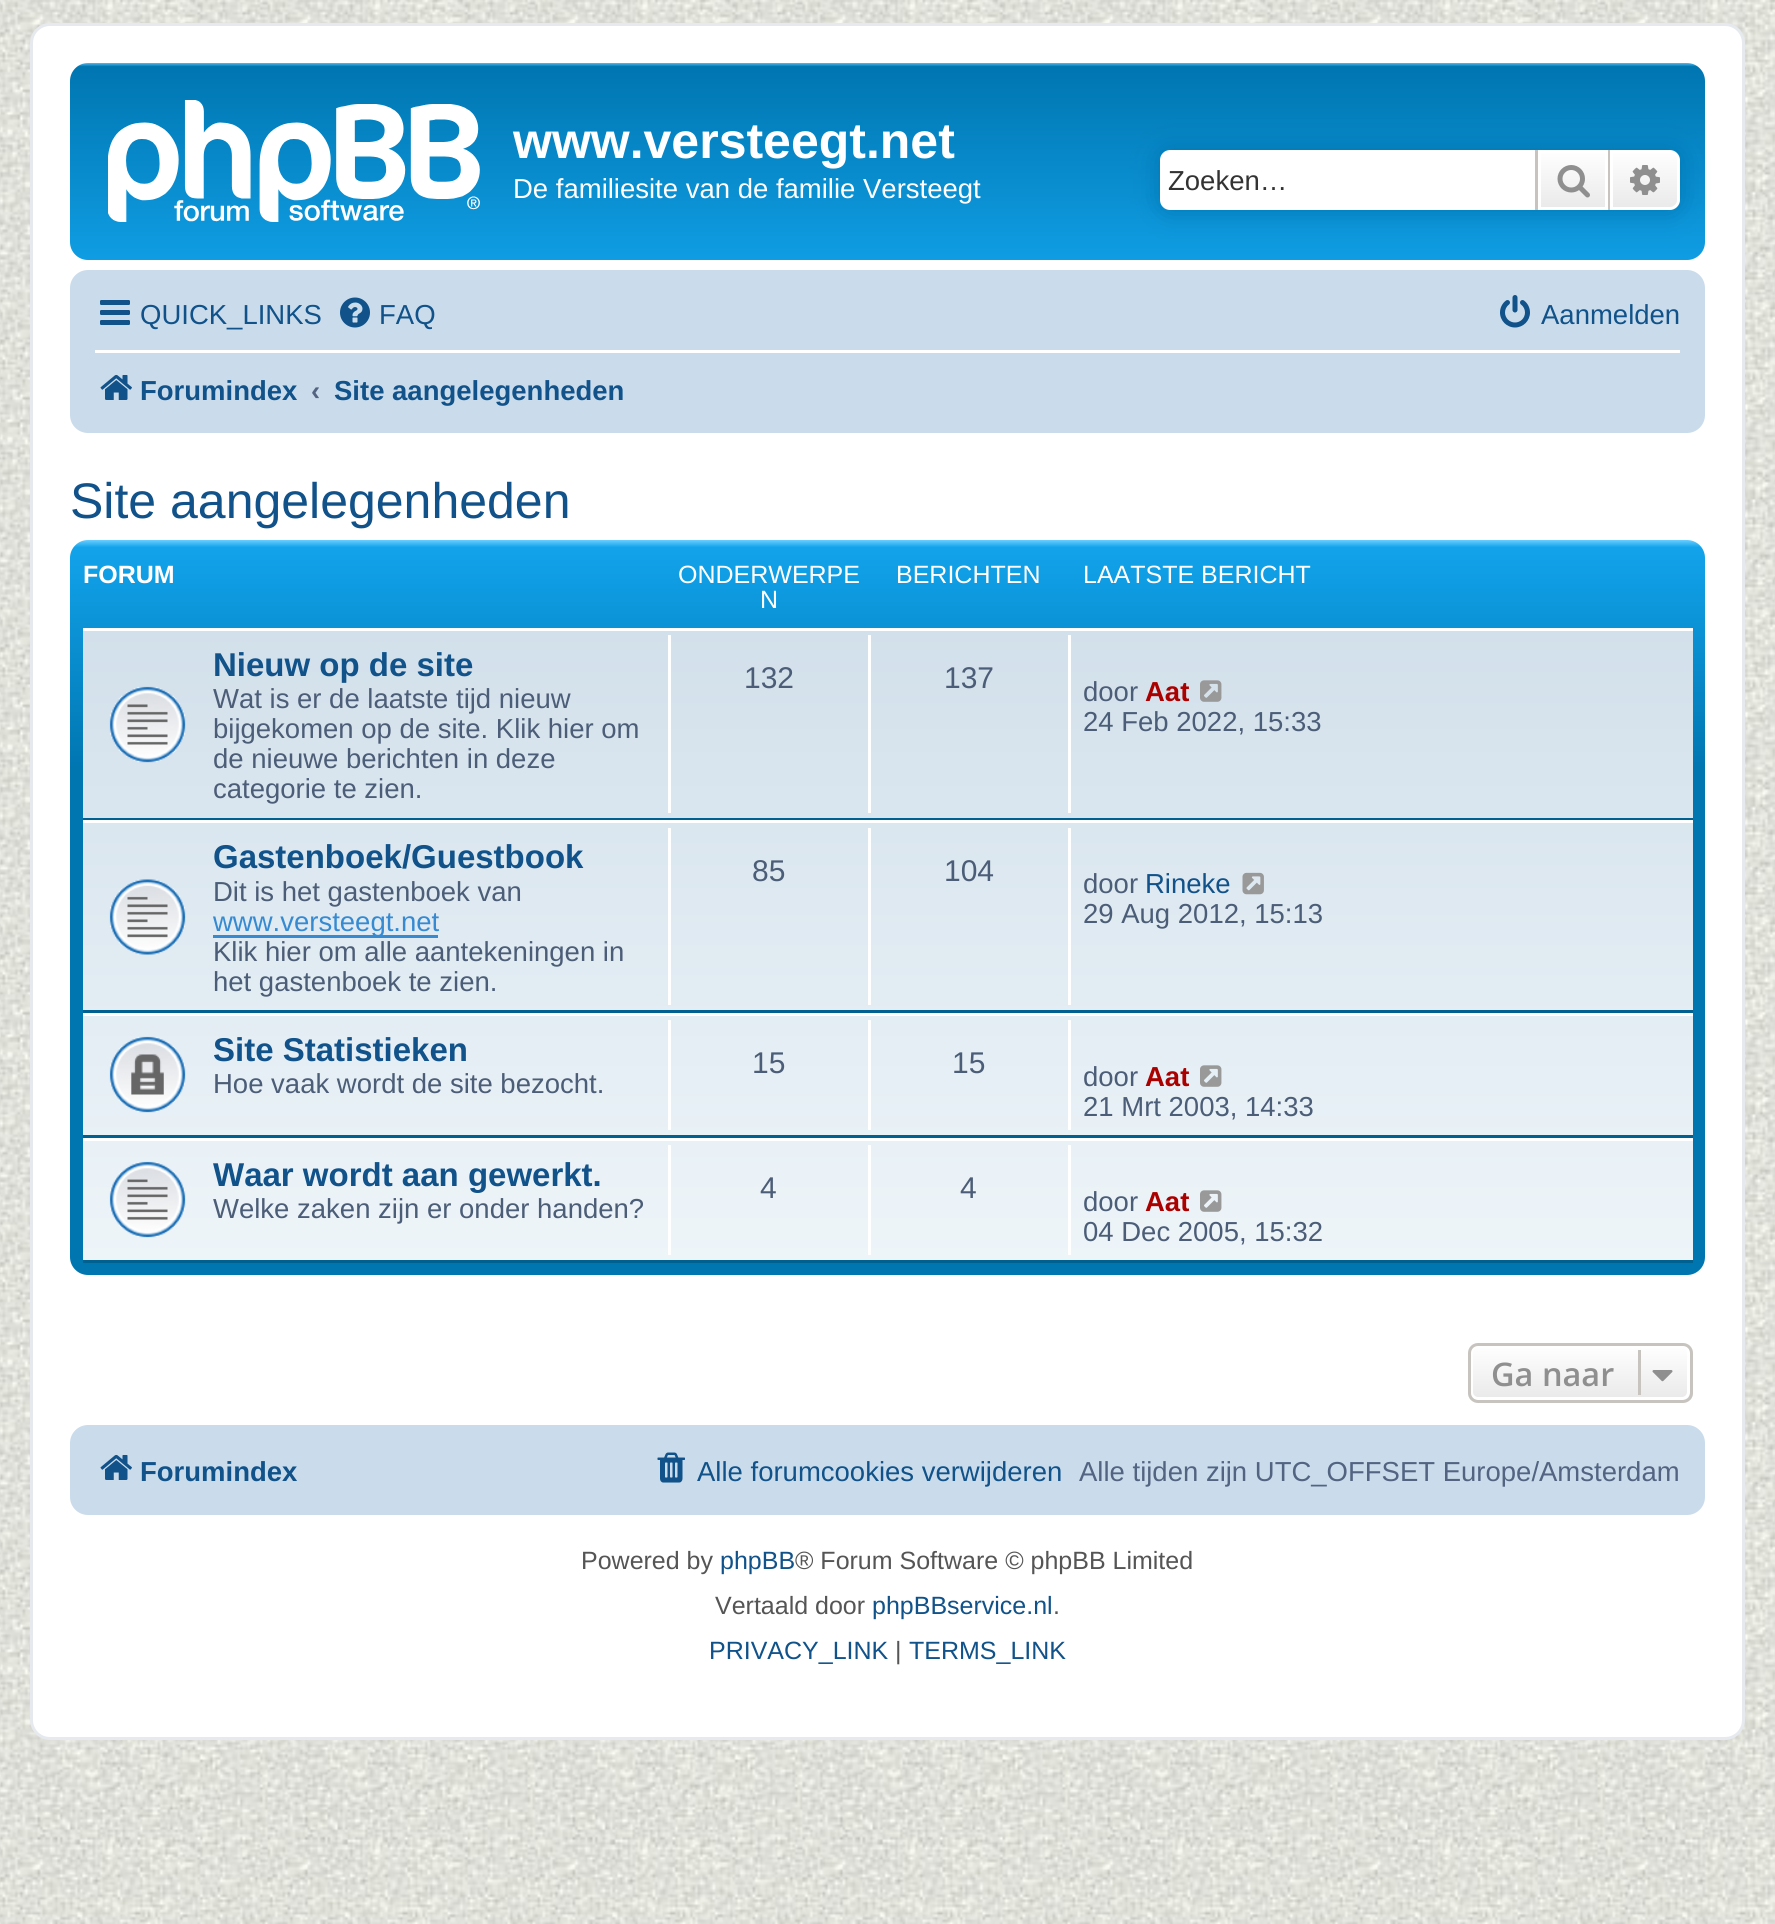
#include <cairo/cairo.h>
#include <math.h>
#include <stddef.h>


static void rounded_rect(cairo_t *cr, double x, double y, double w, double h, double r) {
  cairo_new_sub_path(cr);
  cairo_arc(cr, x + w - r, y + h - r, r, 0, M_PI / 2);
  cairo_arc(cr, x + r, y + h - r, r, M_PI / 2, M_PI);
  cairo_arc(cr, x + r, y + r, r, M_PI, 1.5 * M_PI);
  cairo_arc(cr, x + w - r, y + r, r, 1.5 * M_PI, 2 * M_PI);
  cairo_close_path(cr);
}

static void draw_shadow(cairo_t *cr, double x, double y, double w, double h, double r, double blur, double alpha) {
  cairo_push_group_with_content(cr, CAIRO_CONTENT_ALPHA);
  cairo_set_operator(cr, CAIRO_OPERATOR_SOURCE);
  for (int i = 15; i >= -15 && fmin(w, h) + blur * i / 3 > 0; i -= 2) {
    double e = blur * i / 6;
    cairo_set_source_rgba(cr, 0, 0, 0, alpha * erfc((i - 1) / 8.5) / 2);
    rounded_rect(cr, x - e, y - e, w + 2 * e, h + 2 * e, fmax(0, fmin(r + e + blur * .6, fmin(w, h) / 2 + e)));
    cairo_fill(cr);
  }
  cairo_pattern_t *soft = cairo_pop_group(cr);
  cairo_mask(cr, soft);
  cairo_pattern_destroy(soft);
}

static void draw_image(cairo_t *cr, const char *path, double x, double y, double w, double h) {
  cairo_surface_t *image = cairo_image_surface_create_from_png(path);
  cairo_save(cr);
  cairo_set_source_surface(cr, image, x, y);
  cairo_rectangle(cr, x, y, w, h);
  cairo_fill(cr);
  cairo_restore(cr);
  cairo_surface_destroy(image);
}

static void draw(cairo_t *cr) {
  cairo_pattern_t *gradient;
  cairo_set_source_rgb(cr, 1, 1, 1);
  cairo_paint(cr);
  draw_image(cr, "images/1.png", 0, 1798, 1775, 126);
  draw_image(cr, "images/2.png", 0, 0, 1775, 1798);
  cairo_set_source_rgb(cr, 1, 1, 1);
  rounded_rect(cr, 31.5, 24.5, 1712, 1714, 18.5);
  cairo_fill_preserve(cr);
  cairo_set_source_rgb(cr, 230 / 255.0, 233 / 255.0, 237 / 255.0);
  cairo_set_line_width(cr, 3);
  cairo_stroke(cr);
  gradient = cairo_pattern_create_linear(888, 62, 888, 292);
  cairo_pattern_add_color_stop_rgba(gradient, 0, 106 / 255.0, 206 / 255.0, 1, 1);
  cairo_pattern_add_color_stop_rgba(gradient, 0.02, 0, 118 / 255.0, 177 / 255.0, 1);
  cairo_pattern_add_color_stop_rgba(gradient, 1, 18 / 255.0, 163 / 255.0, 235 / 255.0, 1);
  cairo_set_source(cr, gradient);
  cairo_pattern_destroy(gradient);
  rounded_rect(cr, 70, 63, 1635, 197, 18);
  cairo_fill(cr);
  draw_image(cr, "images/3.png", 108, 100, 372, 122);
  cairo_set_source_rgb(cr, 0, 117 / 255.0, 176 / 255.0);
  draw_shadow(cr, 1160, 150, 520, 60, 10, 12.5, 1);
  cairo_set_source_rgb(cr, 1, 1, 1);
  cairo_new_path(cr);
  cairo_move_to(cr, 1170, 150);
  cairo_line_to(cr, 1535, 150);
  cairo_line_to(cr, 1535, 210);
  cairo_line_to(cr, 1170, 210);
  cairo_curve_to(cr, 1164.5, 210, 1160, 205.5, 1160, 200);
  cairo_line_to(cr, 1160, 160);
  cairo_curve_to(cr, 1160, 154.5, 1164.5, 150, 1170, 150);
  cairo_close_path(cr);
  cairo_fill(cr);
  gradient = cairo_pattern_create_linear(1573, 150, 1573, 210);
  cairo_pattern_add_color_stop_rgba(gradient, 0, 1, 1, 1, 1);
  cairo_pattern_add_color_stop_rgba(gradient, 1, 233 / 255.0, 233 / 255.0, 233 / 255.0, 1);
  cairo_set_source(cr, gradient);
  cairo_pattern_destroy(gradient);
  cairo_rectangle(cr, 1541, 153, 64, 54);
  cairo_fill(cr);
  cairo_rectangle(cr, 1539.5, 151.5, 67, 57);
  cairo_set_source_rgb(cr, 1, 1, 1);
  cairo_stroke(cr);
  cairo_set_source_rgb(cr, 199 / 255.0, 195 / 255.0, 191 / 255.0);
  cairo_rectangle(cr, 1608, 150, 2, 60);
  cairo_fill(cr);
  cairo_rectangle(cr, 1535, 150, 3, 60);
  cairo_fill(cr);
  draw_image(cr, "images/4.png", 1557, 165, 33, 33);
  gradient = cairo_pattern_create_linear(1645, 150, 1645, 210);
  cairo_pattern_add_color_stop_rgba(gradient, 0, 1, 1, 1, 1);
  cairo_pattern_add_color_stop_rgba(gradient, 1, 233 / 255.0, 233 / 255.0, 233 / 255.0, 1);
  cairo_set_source(cr, gradient);
  cairo_pattern_destroy(gradient);
  cairo_new_path(cr);
  cairo_move_to(cr, 1611.5, 151.5);
  cairo_line_to(cr, 1670, 151.5);
  cairo_curve_to(cr, 1674.5, 151.5, 1678.5, 155.5, 1678.5, 160);
  cairo_line_to(cr, 1678.5, 200);
  cairo_curve_to(cr, 1678.5, 204.5, 1674.5, 208.5, 1670, 208.5);
  cairo_line_to(cr, 1611.5, 208.5);
  cairo_close_path(cr);
  cairo_fill_preserve(cr);
  cairo_set_source_rgb(cr, 1, 1, 1);
  cairo_stroke(cr);
  draw_image(cr, "images/5.png", 1630, 165, 30, 30);
  cairo_set_source_rgb(cr, 202 / 255.0, 220 / 255.0, 235 / 255.0);
  rounded_rect(cr, 70, 270, 1635, 163, 18);
  cairo_fill(cr);
  draw_image(cr, "images/6.png", 100, 300, 30, 25);
  draw_image(cr, "images/7.png", 340, 297, 30, 31);
  draw_image(cr, "images/8.png", 1500, 295, 30, 33);
  cairo_set_source_rgb(cr, 1, 1, 1);
  cairo_rectangle(cr, 95, 350, 1585, 3);
  cairo_fill(cr);
  draw_image(cr, "images/9.png", 100, 374, 32, 26);
  gradient = cairo_pattern_create_linear(888, 540, 888, 1275);
  cairo_pattern_add_color_stop_rgba(gradient, 0, 106 / 255.0, 206 / 255.0, 1, 1);
  cairo_pattern_add_color_stop_rgba(gradient, 0.01, 18 / 255.0, 163 / 255.0, 235 / 255.0, 1);
  cairo_pattern_add_color_stop_rgba(gradient, 0.31, 0, 118 / 255.0, 177 / 255.0, 1);
  cairo_pattern_add_color_stop_rgba(gradient, 1, 0, 118 / 255.0, 177 / 255.0, 1);
  cairo_set_source(cr, gradient);
  cairo_pattern_destroy(gradient);
  rounded_rect(cr, 70, 540, 1635, 735, 18);
  cairo_fill(cr);
  gradient = cairo_pattern_create_linear(888, 627, 888, 1263);
  cairo_pattern_add_color_stop_rgba(gradient, 0, 210 / 255.0, 224 / 255.0, 235 / 255.0, 1);
  cairo_pattern_add_color_stop_rgba(gradient, 1, 238 / 255.0, 245 / 255.0, 249 / 255.0, 1);
  cairo_set_source(cr, gradient);
  cairo_pattern_destroy(gradient);
  cairo_rectangle(cr, 83, 631, 1610, 629);
  cairo_fill(cr);
  cairo_set_source_rgb(cr, 1, 1, 1);
  cairo_rectangle(cr, 83, 628, 1610, 3);
  cairo_fill(cr);
  cairo_set_source_rgb(cr, 0, 96 / 255.0, 143 / 255.0);
  cairo_rectangle(cr, 83, 818, 1610, 2);
  cairo_fill(cr);
  draw_image(cr, "images/10.png", 109, 686, 77, 77);
  cairo_set_source_rgb(cr, 1, 1, 1);
  cairo_rectangle(cr, 668, 635, 3, 178);
  cairo_fill(cr);
  cairo_rectangle(cr, 868, 635, 3, 178);
  cairo_fill(cr);
  cairo_rectangle(cr, 1068, 635, 3, 178);
  cairo_fill(cr);
  draw_image(cr, "images/11.png", 1200, 680, 22, 22);
  cairo_rectangle(cr, 83, 820, 1610, 3);
  cairo_fill(cr);
  cairo_set_source_rgb(cr, 0, 96 / 255.0, 143 / 255.0);
  cairo_rectangle(cr, 83, 1010, 1610, 3);
  cairo_fill(cr);
  draw_image(cr, "images/12.png", 109, 879, 77, 76);
  cairo_set_source_rgb(cr, 54 / 255.0, 138 / 255.0, 210 / 255.0);
  cairo_rectangle(cr, 213, 935, 225, 3);
  cairo_fill(cr);
  cairo_set_source_rgb(cr, 1, 1, 1);
  cairo_rectangle(cr, 668, 828, 3, 177);
  cairo_fill(cr);
  cairo_rectangle(cr, 868, 828, 3, 177);
  cairo_fill(cr);
  cairo_rectangle(cr, 1068, 828, 3, 177);
  cairo_fill(cr);
  draw_image(cr, "images/13.png", 1242, 872, 22, 23);
  cairo_rectangle(cr, 83, 1013, 1610, 3);
  cairo_fill(cr);
  cairo_set_source_rgb(cr, 0, 96 / 255.0, 143 / 255.0);
  cairo_rectangle(cr, 83, 1135, 1610, 3);
  cairo_fill(cr);
  draw_image(cr, "images/14.png", 109, 1036, 77, 77);
  cairo_set_source_rgb(cr, 1, 1, 1);
  cairo_rectangle(cr, 668, 1020, 3, 110);
  cairo_fill(cr);
  cairo_rectangle(cr, 868, 1020, 3, 110);
  cairo_fill(cr);
  cairo_rectangle(cr, 1068, 1020, 3, 110);
  cairo_fill(cr);
  draw_image(cr, "images/15.png", 1200, 1065, 22, 22);
  cairo_rectangle(cr, 83, 1138, 1610, 3);
  cairo_fill(cr);
  cairo_set_source_rgb(cr, 0, 96 / 255.0, 143 / 255.0);
  cairo_rectangle(cr, 83, 1260, 1610, 3);
  cairo_fill(cr);
  draw_image(cr, "images/16.png", 109, 1161, 77, 77);
  cairo_set_source_rgb(cr, 1, 1, 1);
  cairo_rectangle(cr, 668, 1145, 3, 110);
  cairo_fill(cr);
  cairo_rectangle(cr, 868, 1145, 3, 110);
  cairo_fill(cr);
  cairo_rectangle(cr, 1068, 1145, 3, 110);
  cairo_fill(cr);
  draw_image(cr, "images/17.png", 1200, 1190, 22, 22);
  cairo_save(cr);
  rounded_rect(cr, 1468, 1343, 225, 60, 10);
  cairo_clip(cr);
  gradient = cairo_pattern_create_linear(1580, 1345, 1580, 1400);
  cairo_pattern_add_color_stop_rgba(gradient, 0, 1, 1, 1, 1);
  cairo_pattern_add_color_stop_rgba(gradient, 1, 233 / 255.0, 233 / 255.0, 233 / 255.0, 1);
  cairo_set_source(cr, gradient);
  cairo_pattern_destroy(gradient);
  cairo_rectangle(cr, 1468, 1345, 225, 55);
  cairo_fill(cr);
  cairo_restore(cr);
  rounded_rect(cr, 1471.5, 1346.5, 217, 52, 6.5);
  cairo_stroke(cr);
  rounded_rect(cr, 1469.5, 1344.5, 222, 57, 8.5);
  cairo_set_source_rgb(cr, 199 / 255.0, 195 / 255.0, 191 / 255.0);
  cairo_stroke(cr);
  cairo_rectangle(cr, 1638, 1350, 3, 45);
  cairo_fill(cr);
  draw_image(cr, "images/18.png", 1652, 1370, 21, 12);
  cairo_set_source_rgb(cr, 202 / 255.0, 220 / 255.0, 235 / 255.0);
  rounded_rect(cr, 70, 1425, 1635, 90, 18);
  cairo_fill(cr);
  draw_image(cr, "images/9.png", 100, 1454, 32, 26);
  draw_image(cr, "images/19.png", 657, 1452, 28, 31);
  cairo_select_font_face(cr, "Liberation Sans", CAIRO_FONT_SLANT_NORMAL, CAIRO_FONT_WEIGHT_BOLD);
  cairo_set_font_size(cr, 50);
  cairo_set_source_rgb(cr, 1, 1, 1);
  cairo_move_to(cr, 513, 158);
  cairo_show_text(cr, "www.versteegt.net");
  cairo_select_font_face(cr, "Liberation Sans", CAIRO_FONT_SLANT_NORMAL, CAIRO_FONT_WEIGHT_NORMAL);
  cairo_set_font_size(cr, 27.5);
  cairo_move_to(cr, 513, 198);
  cairo_show_text(cr, "De familiesite van de familie Versteegt");
  cairo_set_source_rgb(cr, 51 / 255.0, 51 / 255.0, 51 / 255.0);
  cairo_move_to(cr, 1168, 190);
  cairo_show_text(cr, "Zoeken…");
  cairo_set_source_rgb(cr, 16 / 255.0, 82 / 255.0, 137 / 255.0);
  cairo_move_to(cr, 140, 324);
  cairo_show_text(cr, "QUICK_LINKS");
  cairo_move_to(cr, 379, 324);
  cairo_show_text(cr, "FAQ");
  cairo_move_to(cr, 1541, 324);
  cairo_show_text(cr, "Aanmelden");
  cairo_select_font_face(cr, "Liberation Sans", CAIRO_FONT_SLANT_NORMAL, CAIRO_FONT_WEIGHT_BOLD);
  cairo_move_to(cr, 140, 400);
  cairo_show_text(cr, "Forumindex");
  cairo_set_source_rgb(cr, 83 / 255.0, 100 / 255.0, 130 / 255.0);
  cairo_move_to(cr, 311, 400);
  cairo_show_text(cr, "‹");
  cairo_set_source_rgb(cr, 16 / 255.0, 82 / 255.0, 137 / 255.0);
  cairo_move_to(cr, 334, 400);
  cairo_show_text(cr, "Site aangelegenheden");
  cairo_select_font_face(cr, "Liberation Sans", CAIRO_FONT_SLANT_NORMAL, CAIRO_FONT_WEIGHT_NORMAL);
  cairo_set_font_size(cr, 50);
  cairo_move_to(cr, 70, 518);
  cairo_show_text(cr, "Site aangelegenheden");
  cairo_select_font_face(cr, "Liberation Sans", CAIRO_FONT_SLANT_NORMAL, CAIRO_FONT_WEIGHT_BOLD);
  cairo_set_font_size(cr, 25);
  cairo_set_source_rgb(cr, 1, 1, 1);
  cairo_move_to(cr, 83, 583);
  cairo_show_text(cr, "FORUM");
  cairo_select_font_face(cr, "Liberation Sans", CAIRO_FONT_SLANT_NORMAL, CAIRO_FONT_WEIGHT_NORMAL);
  cairo_move_to(cr, 678, 583);
  cairo_show_text(cr, "ONDERWERPE");
  cairo_move_to(cr, 760, 608);
  cairo_show_text(cr, "N");
  cairo_move_to(cr, 896, 583);
  cairo_show_text(cr, "BERICHTEN");
  cairo_move_to(cr, 1083, 583);
  cairo_show_text(cr, "LAATSTE BERICHT");
  cairo_select_font_face(cr, "Liberation Sans", CAIRO_FONT_SLANT_NORMAL, CAIRO_FONT_WEIGHT_BOLD);
  cairo_set_font_size(cr, 33);
  cairo_set_source_rgb(cr, 16 / 255.0, 82 / 255.0, 137 / 255.0);
  cairo_move_to(cr, 213, 676);
  cairo_show_text(cr, "Nieuw op de site");
  cairo_select_font_face(cr, "Liberation Sans", CAIRO_FONT_SLANT_NORMAL, CAIRO_FONT_WEIGHT_NORMAL);
  cairo_set_font_size(cr, 27.5);
  cairo_set_source_rgb(cr, 76 / 255.0, 93 / 255.0, 119 / 255.0);
  cairo_move_to(cr, 213, 708);
  cairo_show_text(cr, "Wat is er de laatste tijd nieuw");
  cairo_move_to(cr, 213, 738);
  cairo_show_text(cr, "bijgekomen op de site. Klik hier om");
  cairo_move_to(cr, 213, 768);
  cairo_show_text(cr, "de nieuwe berichten in deze");
  cairo_move_to(cr, 213, 798);
  cairo_show_text(cr, "categorie te zien.");
  cairo_set_font_size(cr, 30);
  cairo_move_to(cr, 744, 688);
  cairo_show_text(cr, "132");
  cairo_move_to(cr, 944, 688);
  cairo_show_text(cr, "137");
  cairo_set_font_size(cr, 27.5);
  cairo_move_to(cr, 1083, 701);
  cairo_show_text(cr, "door");
  cairo_select_font_face(cr, "Liberation Sans", CAIRO_FONT_SLANT_NORMAL, CAIRO_FONT_WEIGHT_BOLD);
  cairo_set_source_rgb(cr, 170 / 255.0, 0, 0);
  cairo_move_to(cr, 1145, 701);
  cairo_show_text(cr, "Aat");
  cairo_select_font_face(cr, "Liberation Sans", CAIRO_FONT_SLANT_NORMAL, CAIRO_FONT_WEIGHT_NORMAL);
  cairo_set_source_rgb(cr, 76 / 255.0, 93 / 255.0, 119 / 255.0);
  cairo_move_to(cr, 1083, 731);
  cairo_show_text(cr, "24 Feb 2022, 15:33");
  cairo_select_font_face(cr, "Liberation Sans", CAIRO_FONT_SLANT_NORMAL, CAIRO_FONT_WEIGHT_BOLD);
  cairo_set_font_size(cr, 33);
  cairo_set_source_rgb(cr, 16 / 255.0, 82 / 255.0, 137 / 255.0);
  cairo_move_to(cr, 213, 868);
  cairo_show_text(cr, "Gastenboek/Guestbook");
  cairo_select_font_face(cr, "Liberation Sans", CAIRO_FONT_SLANT_NORMAL, CAIRO_FONT_WEIGHT_NORMAL);
  cairo_set_font_size(cr, 27.5);
  cairo_set_source_rgb(cr, 76 / 255.0, 93 / 255.0, 119 / 255.0);
  cairo_move_to(cr, 213, 901);
  cairo_show_text(cr, "Dit is het gastenboek van");
  cairo_set_source_rgb(cr, 54 / 255.0, 138 / 255.0, 210 / 255.0);
  cairo_move_to(cr, 213, 931);
  cairo_show_text(cr, "www.versteegt.net");
  cairo_set_source_rgb(cr, 76 / 255.0, 93 / 255.0, 119 / 255.0);
  cairo_move_to(cr, 213, 961);
  cairo_show_text(cr, "Klik hier om alle aantekeningen in");
  cairo_move_to(cr, 213, 991);
  cairo_show_text(cr, "het gastenboek te zien.");
  cairo_set_font_size(cr, 30);
  cairo_move_to(cr, 752, 881);
  cairo_show_text(cr, "85");
  cairo_move_to(cr, 944, 881);
  cairo_show_text(cr, "104");
  cairo_set_font_size(cr, 27.5);
  cairo_move_to(cr, 1083, 893);
  cairo_show_text(cr, "door");
  cairo_set_source_rgb(cr, 16 / 255.0, 82 / 255.0, 137 / 255.0);
  cairo_move_to(cr, 1145, 893);
  cairo_show_text(cr, "Rineke");
  cairo_set_source_rgb(cr, 76 / 255.0, 93 / 255.0, 119 / 255.0);
  cairo_move_to(cr, 1083, 923);
  cairo_show_text(cr, "29 Aug 2012, 15:13");
  cairo_select_font_face(cr, "Liberation Sans", CAIRO_FONT_SLANT_NORMAL, CAIRO_FONT_WEIGHT_BOLD);
  cairo_set_font_size(cr, 33);
  cairo_set_source_rgb(cr, 16 / 255.0, 82 / 255.0, 137 / 255.0);
  cairo_move_to(cr, 213, 1061);
  cairo_show_text(cr, "Site Statistieken");
  cairo_select_font_face(cr, "Liberation Sans", CAIRO_FONT_SLANT_NORMAL, CAIRO_FONT_WEIGHT_NORMAL);
  cairo_set_font_size(cr, 27.5);
  cairo_set_source_rgb(cr, 76 / 255.0, 93 / 255.0, 119 / 255.0);
  cairo_move_to(cr, 213, 1093);
  cairo_show_text(cr, "Hoe vaak wordt de site bezocht.");
  cairo_set_font_size(cr, 30);
  cairo_move_to(cr, 752, 1073);
  cairo_show_text(cr, "15");
  cairo_move_to(cr, 952, 1073);
  cairo_show_text(cr, "15");
  cairo_set_font_size(cr, 27.5);
  cairo_move_to(cr, 1083, 1086);
  cairo_show_text(cr, "door");
  cairo_select_font_face(cr, "Liberation Sans", CAIRO_FONT_SLANT_NORMAL, CAIRO_FONT_WEIGHT_BOLD);
  cairo_set_source_rgb(cr, 170 / 255.0, 0, 0);
  cairo_move_to(cr, 1145, 1086);
  cairo_show_text(cr, "Aat");
  cairo_select_font_face(cr, "Liberation Sans", CAIRO_FONT_SLANT_NORMAL, CAIRO_FONT_WEIGHT_NORMAL);
  cairo_set_source_rgb(cr, 76 / 255.0, 93 / 255.0, 119 / 255.0);
  cairo_move_to(cr, 1083, 1116);
  cairo_show_text(cr, "21 Mrt 2003, 14:33");
  cairo_select_font_face(cr, "Liberation Sans", CAIRO_FONT_SLANT_NORMAL, CAIRO_FONT_WEIGHT_BOLD);
  cairo_set_font_size(cr, 33);
  cairo_set_source_rgb(cr, 16 / 255.0, 82 / 255.0, 137 / 255.0);
  cairo_move_to(cr, 213, 1186);
  cairo_show_text(cr, "Waar wordt aan gewerkt.");
  cairo_select_font_face(cr, "Liberation Sans", CAIRO_FONT_SLANT_NORMAL, CAIRO_FONT_WEIGHT_NORMAL);
  cairo_set_font_size(cr, 27.5);
  cairo_set_source_rgb(cr, 76 / 255.0, 93 / 255.0, 119 / 255.0);
  cairo_move_to(cr, 213, 1218);
  cairo_show_text(cr, "Welke zaken zijn er onder handen?");
  cairo_set_font_size(cr, 30);
  cairo_move_to(cr, 760, 1198);
  cairo_show_text(cr, "4");
  cairo_move_to(cr, 960, 1198);
  cairo_show_text(cr, "4");
  cairo_set_font_size(cr, 27.5);
  cairo_move_to(cr, 1083, 1211);
  cairo_show_text(cr, "door");
  cairo_select_font_face(cr, "Liberation Sans", CAIRO_FONT_SLANT_NORMAL, CAIRO_FONT_WEIGHT_BOLD);
  cairo_set_source_rgb(cr, 170 / 255.0, 0, 0);
  cairo_move_to(cr, 1145, 1211);
  cairo_show_text(cr, "Aat");
  cairo_select_font_face(cr, "Liberation Sans", CAIRO_FONT_SLANT_NORMAL, CAIRO_FONT_WEIGHT_NORMAL);
  cairo_set_source_rgb(cr, 76 / 255.0, 93 / 255.0, 119 / 255.0);
  cairo_move_to(cr, 1083, 1241);
  cairo_show_text(cr, "04 Dec 2005, 15:32");
  cairo_select_font_face(cr, "Open Sans SemiBold", CAIRO_FONT_SLANT_NORMAL, CAIRO_FONT_WEIGHT_NORMAL);
  cairo_set_font_size(cr, 32.5);
  cairo_set_source_rgb(cr, 143 / 255.0, 143 / 255.0, 143 / 255.0);
  cairo_move_to(cr, 1491, 1386);
  cairo_show_text(cr, "Ga naar");
  cairo_select_font_face(cr, "Liberation Sans", CAIRO_FONT_SLANT_NORMAL, CAIRO_FONT_WEIGHT_BOLD);
  cairo_set_font_size(cr, 27.5);
  cairo_set_source_rgb(cr, 16 / 255.0, 82 / 255.0, 137 / 255.0);
  cairo_move_to(cr, 140, 1481);
  cairo_show_text(cr, "Forumindex");
  cairo_select_font_face(cr, "Liberation Sans", CAIRO_FONT_SLANT_NORMAL, CAIRO_FONT_WEIGHT_NORMAL);
  cairo_move_to(cr, 697, 1481);
  cairo_show_text(cr, "Alle forumcookies verwijderen");
  cairo_set_source_rgb(cr, 83 / 255.0, 100 / 255.0, 130 / 255.0);
  cairo_move_to(cr, 1079, 1481);
  cairo_show_text(cr, "Alle tijden zijn UTC_OFFSET Europe/Amsterdam");
  cairo_set_font_size(cr, 25);
  cairo_set_source_rgb(cr, 85 / 255.0, 85 / 255.0, 85 / 255.0);
  cairo_move_to(cr, 581, 1569);
  cairo_show_text(cr, "Powered by");
  cairo_set_source_rgb(cr, 16 / 255.0, 82 / 255.0, 137 / 255.0);
  cairo_move_to(cr, 720, 1569);
  cairo_show_text(cr, "phpBB");
  cairo_set_source_rgb(cr, 85 / 255.0, 85 / 255.0, 85 / 255.0);
  cairo_move_to(cr, 795, 1569);
  cairo_show_text(cr, "® Forum Software © phpBB Limited");
  cairo_move_to(cr, 715, 1614);
  cairo_show_text(cr, "Vertaald door");
  cairo_set_source_rgb(cr, 16 / 255.0, 82 / 255.0, 137 / 255.0);
  cairo_move_to(cr, 872, 1614);
  cairo_show_text(cr, "phpBBservice.nl");
  cairo_set_source_rgb(cr, 85 / 255.0, 85 / 255.0, 85 / 255.0);
  cairo_move_to(cr, 1053, 1614);
  cairo_show_text(cr, ".");
  cairo_set_source_rgb(cr, 16 / 255.0, 82 / 255.0, 137 / 255.0);
  cairo_move_to(cr, 709, 1659);
  cairo_show_text(cr, "PRIVACY_LINK");
  cairo_set_source_rgb(cr, 85 / 255.0, 85 / 255.0, 85 / 255.0);
  cairo_move_to(cr, 895, 1659);
  cairo_show_text(cr, "|");
  cairo_set_source_rgb(cr, 16 / 255.0, 82 / 255.0, 137 / 255.0);
  cairo_move_to(cr, 909, 1659);
  cairo_show_text(cr, "TERMS_LINK");
}

int main(void) {
  cairo_surface_t *surface = cairo_image_surface_create(CAIRO_FORMAT_RGB24, 1775, 1924);
  cairo_t *cr = cairo_create(surface);
  cairo_font_options_t *options = cairo_font_options_create();
  cairo_font_options_set_hint_metrics(options, CAIRO_HINT_METRICS_OFF);
  cairo_font_options_set_hint_style(options, CAIRO_HINT_STYLE_NONE);
  cairo_set_font_options(cr, options);
  cairo_set_miter_limit(cr, 4);
  draw(cr);
  cairo_surface_write_to_png(surface, "out.png");
  cairo_font_options_destroy(options);
  cairo_destroy(cr);
  cairo_surface_destroy(surface);
  return 0;
}
